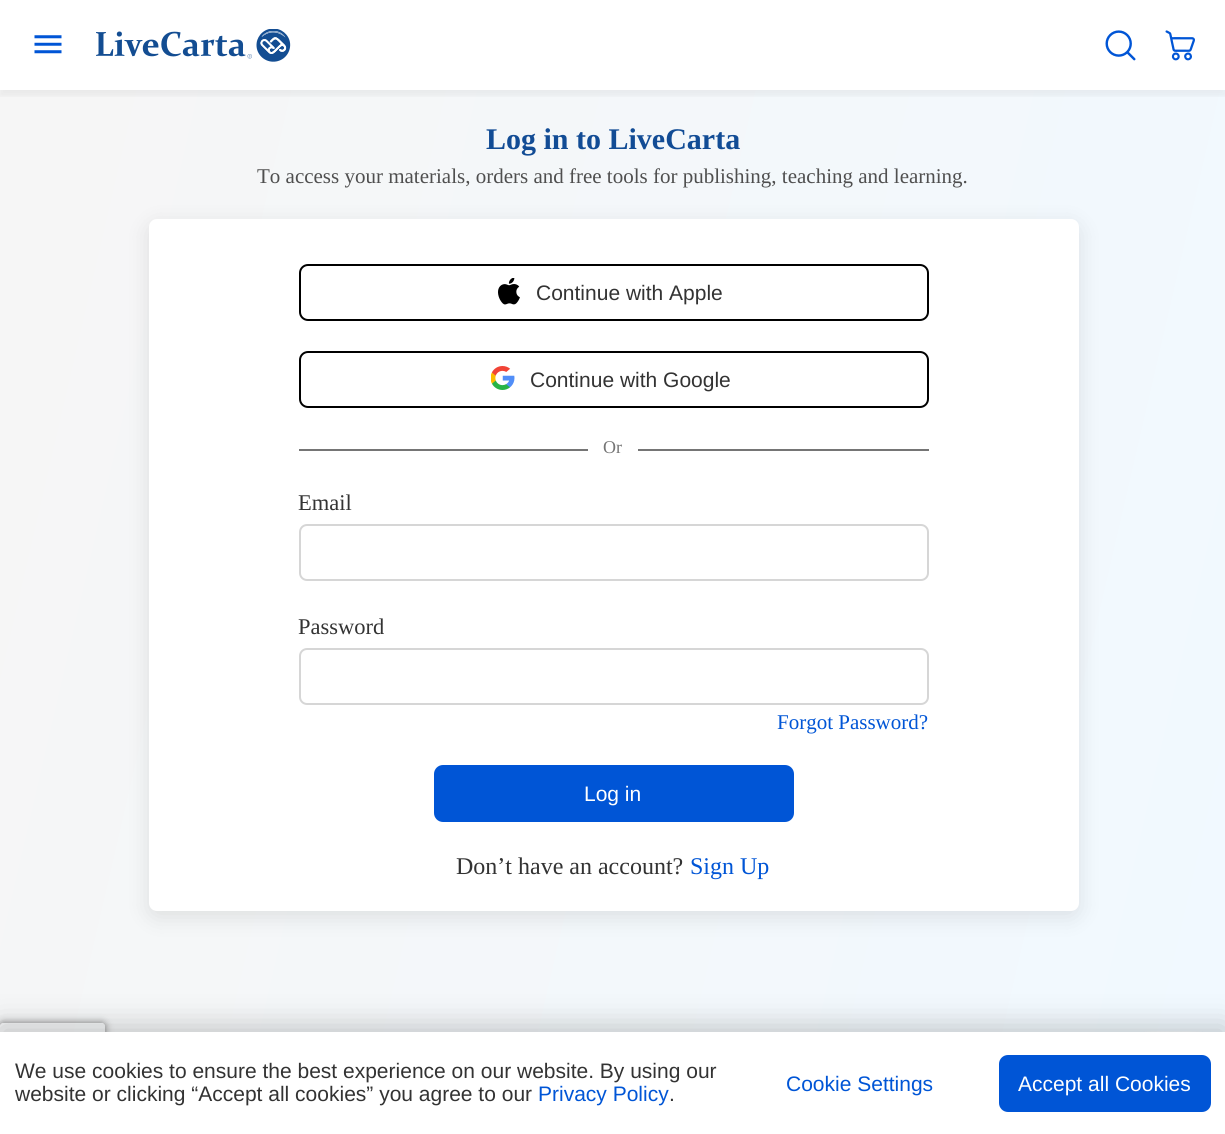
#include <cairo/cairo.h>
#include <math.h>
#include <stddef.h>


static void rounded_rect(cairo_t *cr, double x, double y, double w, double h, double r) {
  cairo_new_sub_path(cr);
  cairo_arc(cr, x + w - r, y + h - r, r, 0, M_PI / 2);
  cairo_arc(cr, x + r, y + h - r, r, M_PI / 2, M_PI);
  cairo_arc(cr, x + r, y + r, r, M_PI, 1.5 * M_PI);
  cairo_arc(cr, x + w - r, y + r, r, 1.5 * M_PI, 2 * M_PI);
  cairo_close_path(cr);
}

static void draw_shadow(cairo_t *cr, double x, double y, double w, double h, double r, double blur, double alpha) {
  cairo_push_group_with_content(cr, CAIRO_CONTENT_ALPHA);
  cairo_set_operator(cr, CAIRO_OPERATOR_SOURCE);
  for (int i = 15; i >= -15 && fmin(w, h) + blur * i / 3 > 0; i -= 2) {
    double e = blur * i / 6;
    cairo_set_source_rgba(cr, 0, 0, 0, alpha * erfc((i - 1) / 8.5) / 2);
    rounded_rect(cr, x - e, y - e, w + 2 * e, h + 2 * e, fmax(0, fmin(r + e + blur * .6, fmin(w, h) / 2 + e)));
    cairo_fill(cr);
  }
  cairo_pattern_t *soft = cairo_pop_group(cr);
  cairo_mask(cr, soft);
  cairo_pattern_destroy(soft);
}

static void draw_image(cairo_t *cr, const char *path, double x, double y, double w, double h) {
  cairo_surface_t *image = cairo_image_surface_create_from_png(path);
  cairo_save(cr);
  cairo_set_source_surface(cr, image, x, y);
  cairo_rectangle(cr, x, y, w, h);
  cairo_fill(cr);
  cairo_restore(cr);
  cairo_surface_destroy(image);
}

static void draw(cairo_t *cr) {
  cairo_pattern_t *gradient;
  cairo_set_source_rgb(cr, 1, 1, 1);
  cairo_paint(cr);
  gradient = cairo_pattern_create_linear(-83, 451, 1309, 773);
  cairo_pattern_add_color_stop_rgba(gradient, 0.04, 246 / 255.0, 246 / 255.0, 246 / 255.0, 1);
  cairo_pattern_add_color_stop_rgba(gradient, 0.99, 241 / 255.0, 249 / 255.0, 1, 1);
  cairo_set_source(cr, gradient);
  cairo_pattern_destroy(gradient);
  cairo_rectangle(cr, 0, 90, 1225, 942);
  cairo_fill(cr);
  cairo_save(cr);
  cairo_rectangle(cr, 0, 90, 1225, 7);
  cairo_clip(cr);
  cairo_set_source_rgb(cr, 0, 0, 0);
  draw_shadow(cr, 0, 6, 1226, 90, 0, 3, 0.05);
  cairo_restore(cr);
  draw_image(cr, "images/1.png", 34, 35, 28, 19);
  draw_image(cr, "images/2.png", 96, 29, 195, 33);
  draw_image(cr, "images/3.png", 1105, 30, 31, 31);
  draw_image(cr, "images/4.png", 1165, 30, 30, 31);
  cairo_set_source_rgb(cr, 0, 0, 0);
  draw_shadow(cr, 149, 225, 930, 692, 8, 11, 0.1);
  cairo_set_source_rgb(cr, 1, 1, 1);
  rounded_rect(cr, 149, 219, 930, 692, 8);
  cairo_fill(cr);
  rounded_rect(cr, 300, 265, 628, 55, 8);
  cairo_set_source_rgb(cr, 0, 0, 0);
  cairo_stroke(cr);
  draw_image(cr, "images/5.png", 498, 278, 22, 27);
  rounded_rect(cr, 300, 352, 628, 55, 8);
  cairo_stroke(cr);
  draw_image(cr, "images/6.png", 491, 366, 24, 24);
  cairo_set_source_rgb(cr, 117 / 255.0, 117 / 255.0, 117 / 255.0);
  cairo_rectangle(cr, 299, 449, 630, 2);
  cairo_fill(cr);
  cairo_set_source_rgb(cr, 1, 1, 1);
  cairo_rectangle(cr, 588, 449, 50, 2);
  cairo_fill(cr);
  rounded_rect(cr, 300, 525, 628, 55, 7);
  cairo_set_source_rgb(cr, 214 / 255.0, 214 / 255.0, 214 / 255.0);
  cairo_stroke(cr);
  rounded_rect(cr, 300, 649, 628, 55, 7);
  cairo_stroke(cr);
  cairo_set_source_rgb(cr, 0, 85 / 255.0, 214 / 255.0);
  rounded_rect(cr, 434, 765, 360, 57, 9);
  cairo_fill(cr);
  cairo_save(cr);
  cairo_set_fill_rule(cr, CAIRO_FILL_RULE_EVEN_ODD);
  cairo_new_path(cr);
  cairo_move_to(cr, 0, 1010);
  cairo_line_to(cr, 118, 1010);
  cairo_line_to(cr, 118, 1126);
  cairo_line_to(cr, 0, 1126);
  cairo_close_path(cr);
  cairo_move_to(cr, 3, 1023);
  cairo_line_to(cr, 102, 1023);
  cairo_curve_to(cr, 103.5, 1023, 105, 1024.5, 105, 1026);
  cairo_line_to(cr, 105, 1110);
  cairo_curve_to(cr, 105, 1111.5, 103.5, 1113, 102, 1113);
  cairo_line_to(cr, 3, 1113);
  cairo_curve_to(cr, 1.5, 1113, 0, 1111.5, 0, 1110);
  cairo_line_to(cr, 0, 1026);
  cairo_curve_to(cr, 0, 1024.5, 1.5, 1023, 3, 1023);
  cairo_close_path(cr);
  cairo_clip(cr);
  cairo_set_source_rgb(cr, 128 / 255.0, 128 / 255.0, 128 / 255.0);
  draw_shadow(cr, 0, 1023, 105, 90, 3, 4, 1);
  cairo_restore(cr);
  draw_image(cr, "images/7.png", 1143, 1031, 60, 1);
  cairo_set_source_rgb(cr, 0, 0, 0);
  draw_shadow(cr, 0, 1026, 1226, 102, 0, 15, 0.21);
  cairo_set_source_rgb(cr, 1, 1, 1);
  cairo_rectangle(cr, 0, 1032, 1225, 102);
  cairo_fill(cr);
  cairo_set_source_rgb(cr, 0, 85 / 255.0, 214 / 255.0);
  rounded_rect(cr, 999, 1055, 212, 57, 9);
  cairo_fill(cr);
  cairo_select_font_face(cr, "Liberation Serif", CAIRO_FONT_SLANT_NORMAL, CAIRO_FONT_WEIGHT_BOLD);
  cairo_set_font_size(cr, 30);
  cairo_set_source_rgb(cr, 18 / 255.0, 76 / 255.0, 149 / 255.0);
  cairo_move_to(cr, 486, 149);
  cairo_show_text(cr, "Log in to LiveCarta");
  cairo_select_font_face(cr, "Liberation Serif", CAIRO_FONT_SLANT_NORMAL, CAIRO_FONT_WEIGHT_NORMAL);
  cairo_set_font_size(cr, 21);
  cairo_set_source_rgb(cr, 79 / 255.0, 79 / 255.0, 79 / 255.0);
  cairo_move_to(cr, 257, 183);
  cairo_show_text(cr, "To access your materials, orders and free tools for publishing, teaching and learning.");
  cairo_select_font_face(cr, "Liberation Sans", CAIRO_FONT_SLANT_NORMAL, CAIRO_FONT_WEIGHT_NORMAL);
  cairo_set_source_rgb(cr, 51 / 255.0, 51 / 255.0, 51 / 255.0);
  cairo_move_to(cr, 536, 300);
  cairo_show_text(cr, "Continue with Apple");
  cairo_move_to(cr, 530, 387);
  cairo_show_text(cr, "Continue with Google");
  cairo_select_font_face(cr, "Liberation Serif", CAIRO_FONT_SLANT_NORMAL, CAIRO_FONT_WEIGHT_NORMAL);
  cairo_set_font_size(cr, 18);
  cairo_set_source_rgb(cr, 117 / 255.0, 117 / 255.0, 117 / 255.0);
  cairo_move_to(cr, 603, 453);
  cairo_show_text(cr, "Or");
  cairo_set_font_size(cr, 22.5);
  cairo_set_source_rgb(cr, 51 / 255.0, 51 / 255.0, 51 / 255.0);
  cairo_move_to(cr, 298, 510);
  cairo_show_text(cr, "Email");
  cairo_move_to(cr, 298, 634);
  cairo_show_text(cr, "Password");
  cairo_set_font_size(cr, 21);
  cairo_set_source_rgb(cr, 0, 85 / 255.0, 214 / 255.0);
  cairo_move_to(cr, 777, 729);
  cairo_show_text(cr, "Forgot Password?");
  cairo_select_font_face(cr, "Liberation Sans", CAIRO_FONT_SLANT_NORMAL, CAIRO_FONT_WEIGHT_NORMAL);
  cairo_set_source_rgb(cr, 1, 1, 1);
  cairo_move_to(cr, 584, 801);
  cairo_show_text(cr, "Log in");
  cairo_select_font_face(cr, "Liberation Serif", CAIRO_FONT_SLANT_NORMAL, CAIRO_FONT_WEIGHT_NORMAL);
  cairo_set_font_size(cr, 24);
  cairo_set_source_rgb(cr, 51 / 255.0, 51 / 255.0, 51 / 255.0);
  cairo_move_to(cr, 456, 874);
  cairo_show_text(cr, "Don’t have an account?");
  cairo_set_source_rgb(cr, 0, 85 / 255.0, 214 / 255.0);
  cairo_move_to(cr, 690, 874);
  cairo_show_text(cr, "Sign Up");
  cairo_select_font_face(cr, "Liberation Sans", CAIRO_FONT_SLANT_NORMAL, CAIRO_FONT_WEIGHT_NORMAL);
  cairo_set_font_size(cr, 21);
  cairo_set_source_rgb(cr, 51 / 255.0, 51 / 255.0, 51 / 255.0);
  cairo_move_to(cr, 15, 1078);
  cairo_show_text(cr, "We use cookies to ensure the best experience on our website. By using our");
  cairo_move_to(cr, 15, 1101);
  cairo_show_text(cr, "website or clicking “Accept all cookies” you agree to our");
  cairo_set_source_rgb(cr, 0, 85 / 255.0, 214 / 255.0);
  cairo_move_to(cr, 538, 1101);
  cairo_show_text(cr, "Privacy Policy");
  cairo_set_source_rgb(cr, 51 / 255.0, 51 / 255.0, 51 / 255.0);
  cairo_move_to(cr, 669, 1101);
  cairo_show_text(cr, ".");
  cairo_set_source_rgb(cr, 0, 85 / 255.0, 214 / 255.0);
  cairo_move_to(cr, 786, 1091);
  cairo_show_text(cr, "Cookie Settings");
  cairo_set_source_rgb(cr, 1, 1, 1);
  cairo_move_to(cr, 1018, 1091);
  cairo_show_text(cr, "Accept all Cookies");
}

int main(void) {
  cairo_surface_t *surface = cairo_image_surface_create(CAIRO_FORMAT_RGB24, 1225, 1134);
  cairo_t *cr = cairo_create(surface);
  cairo_font_options_t *options = cairo_font_options_create();
  cairo_font_options_set_hint_metrics(options, CAIRO_HINT_METRICS_OFF);
  cairo_font_options_set_hint_style(options, CAIRO_HINT_STYLE_NONE);
  cairo_set_font_options(cr, options);
  cairo_set_miter_limit(cr, 4);
  draw(cr);
  cairo_surface_write_to_png(surface, "out.png");
  cairo_font_options_destroy(options);
  cairo_destroy(cr);
  cairo_surface_destroy(surface);
  return 0;
}
